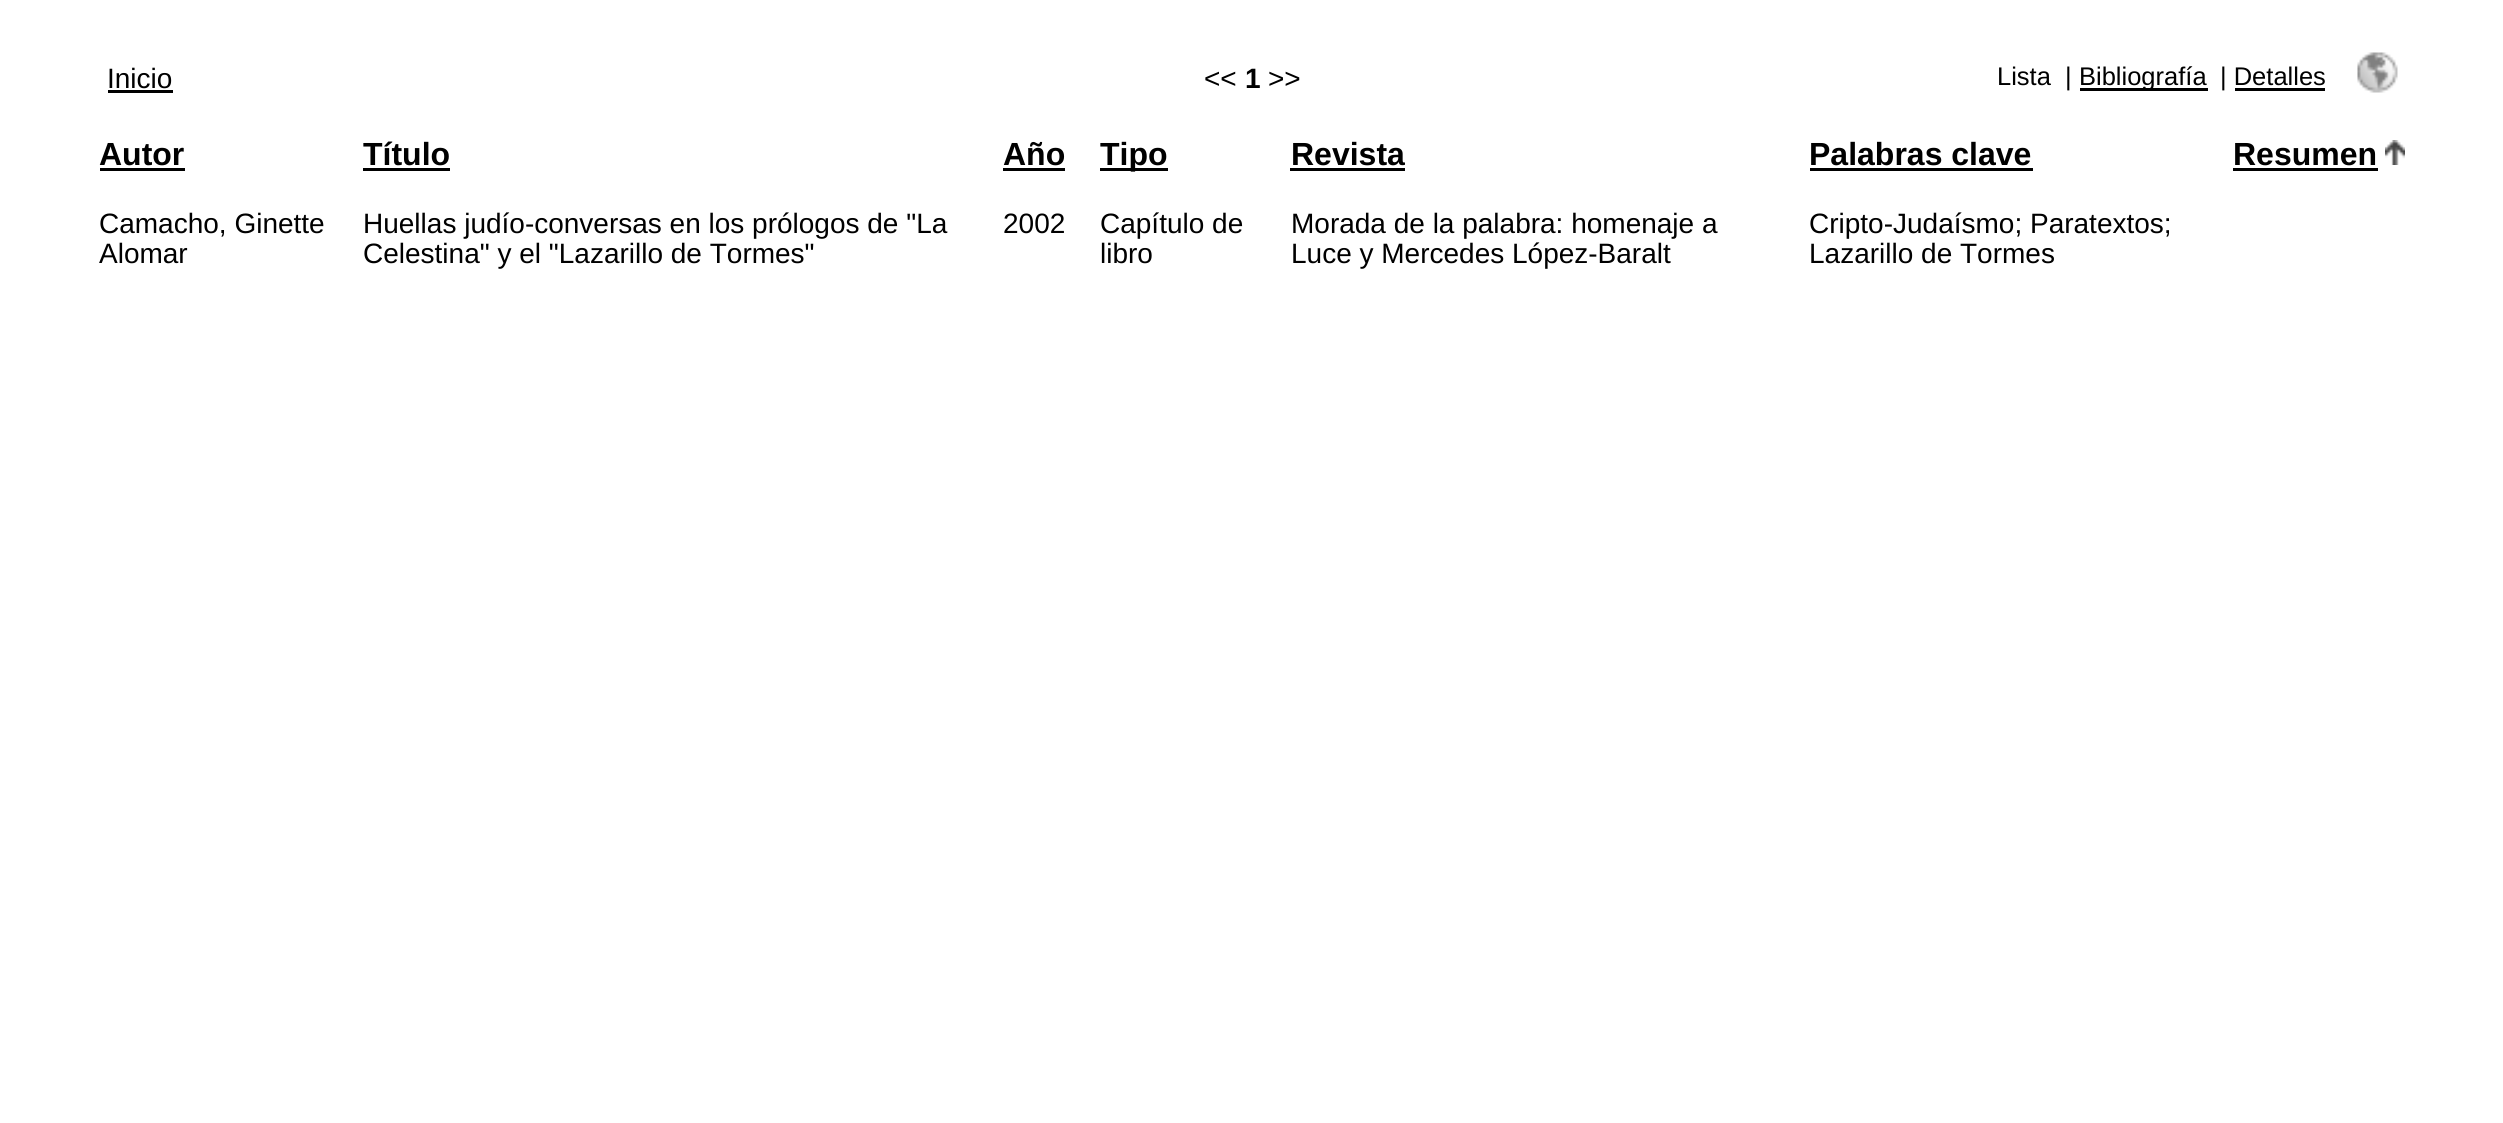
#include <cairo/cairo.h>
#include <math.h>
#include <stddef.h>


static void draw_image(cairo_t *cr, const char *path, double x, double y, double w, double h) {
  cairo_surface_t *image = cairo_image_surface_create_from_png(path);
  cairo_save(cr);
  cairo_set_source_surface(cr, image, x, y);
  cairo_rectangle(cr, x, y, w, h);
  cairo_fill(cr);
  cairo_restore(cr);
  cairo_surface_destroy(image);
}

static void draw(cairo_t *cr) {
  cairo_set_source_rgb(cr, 1, 1, 1);
  cairo_paint(cr);
  cairo_set_source_rgb(cr, 0, 0, 0);
  cairo_rectangle(cr, 108, 90, 65, 3);
  cairo_fill(cr);
  cairo_rectangle(cr, 2080, 88, 128, 3);
  cairo_fill(cr);
  cairo_rectangle(cr, 2235, 88, 90, 3);
  cairo_fill(cr);
  draw_image(cr, "images/1.png", 2357, 52, 41, 41);
  cairo_rectangle(cr, 100, 168, 85, 3);
  cairo_fill(cr);
  cairo_rectangle(cr, 363, 168, 87, 3);
  cairo_fill(cr);
  cairo_rectangle(cr, 1003, 168, 62, 3);
  cairo_fill(cr);
  cairo_rectangle(cr, 1100, 168, 68, 3);
  cairo_fill(cr);
  cairo_rectangle(cr, 1290, 168, 115, 3);
  cairo_fill(cr);
  cairo_rectangle(cr, 1810, 168, 223, 3);
  cairo_fill(cr);
  cairo_rectangle(cr, 2233, 168, 145, 3);
  cairo_fill(cr);
  draw_image(cr, "images/2.png", 2385, 140, 20, 25);
  cairo_select_font_face(cr, "Liberation Sans", CAIRO_FONT_SLANT_NORMAL, CAIRO_FONT_WEIGHT_NORMAL);
  cairo_set_font_size(cr, 28);
  cairo_move_to(cr, 107, 88);
  cairo_show_text(cr, "Inicio");
  cairo_move_to(cr, 1204, 88);
  cairo_show_text(cr, "<<");
  cairo_select_font_face(cr, "Liberation Sans", CAIRO_FONT_SLANT_NORMAL, CAIRO_FONT_WEIGHT_BOLD);
  cairo_move_to(cr, 1245, 88);
  cairo_show_text(cr, "1");
  cairo_select_font_face(cr, "Liberation Sans", CAIRO_FONT_SLANT_NORMAL, CAIRO_FONT_WEIGHT_NORMAL);
  cairo_move_to(cr, 1268, 88);
  cairo_show_text(cr, ">>");
  cairo_set_font_size(cr, 25.5);
  cairo_move_to(cr, 1997, 85);
  cairo_show_text(cr, "Lista");
  cairo_move_to(cr, 2065, 85);
  cairo_show_text(cr, "|");
  cairo_move_to(cr, 2079, 85);
  cairo_show_text(cr, "Bibliografía");
  cairo_move_to(cr, 2220, 85);
  cairo_show_text(cr, "| Detalles");
  cairo_select_font_face(cr, "Liberation Sans", CAIRO_FONT_SLANT_NORMAL, CAIRO_FONT_WEIGHT_BOLD);
  cairo_set_font_size(cr, 32);
  cairo_move_to(cr, 99, 165);
  cairo_show_text(cr, "Autor");
  cairo_move_to(cr, 363, 165);
  cairo_show_text(cr, "Título");
  cairo_move_to(cr, 1003, 165);
  cairo_show_text(cr, "Año");
  cairo_move_to(cr, 1100, 165);
  cairo_show_text(cr, "Tipo");
  cairo_move_to(cr, 1291, 165);
  cairo_show_text(cr, "Revista");
  cairo_move_to(cr, 1809, 165);
  cairo_show_text(cr, "Palabras clave");
  cairo_move_to(cr, 2233, 165);
  cairo_show_text(cr, "Resumen");
  cairo_select_font_face(cr, "Liberation Sans", CAIRO_FONT_SLANT_NORMAL, CAIRO_FONT_WEIGHT_NORMAL);
  cairo_set_font_size(cr, 28);
  cairo_move_to(cr, 99, 233);
  cairo_show_text(cr, "Camacho, Ginette");
  cairo_move_to(cr, 99, 263);
  cairo_show_text(cr, "Alomar");
  cairo_move_to(cr, 363, 233);
  cairo_show_text(cr, "Huellas judío-conversas en los prólogos de \"La");
  cairo_move_to(cr, 363, 263);
  cairo_show_text(cr, "Celestina\" y el \"Lazarillo de Tormes\"");
  cairo_move_to(cr, 1003, 233);
  cairo_show_text(cr, "2002");
  cairo_move_to(cr, 1100, 233);
  cairo_show_text(cr, "Capítulo de");
  cairo_move_to(cr, 1100, 263);
  cairo_show_text(cr, "libro");
  cairo_move_to(cr, 1291, 233);
  cairo_show_text(cr, "Morada de la palabra: homenaje a");
  cairo_move_to(cr, 1291, 263);
  cairo_show_text(cr, "Luce y Mercedes López-Baralt");
  cairo_move_to(cr, 1809, 233);
  cairo_show_text(cr, "Cripto-Judaísmo; Paratextos;");
  cairo_move_to(cr, 1809, 263);
  cairo_show_text(cr, "Lazarillo de Tormes");
}

int main(void) {
  cairo_surface_t *surface = cairo_image_surface_create(CAIRO_FORMAT_RGB24, 2503, 1123);
  cairo_t *cr = cairo_create(surface);
  cairo_font_options_t *options = cairo_font_options_create();
  cairo_font_options_set_hint_metrics(options, CAIRO_HINT_METRICS_OFF);
  cairo_font_options_set_hint_style(options, CAIRO_HINT_STYLE_NONE);
  cairo_set_font_options(cr, options);
  cairo_set_miter_limit(cr, 4);
  draw(cr);
  cairo_surface_write_to_png(surface, "out.png");
  cairo_font_options_destroy(options);
  cairo_destroy(cr);
  cairo_surface_destroy(surface);
  return 0;
}
